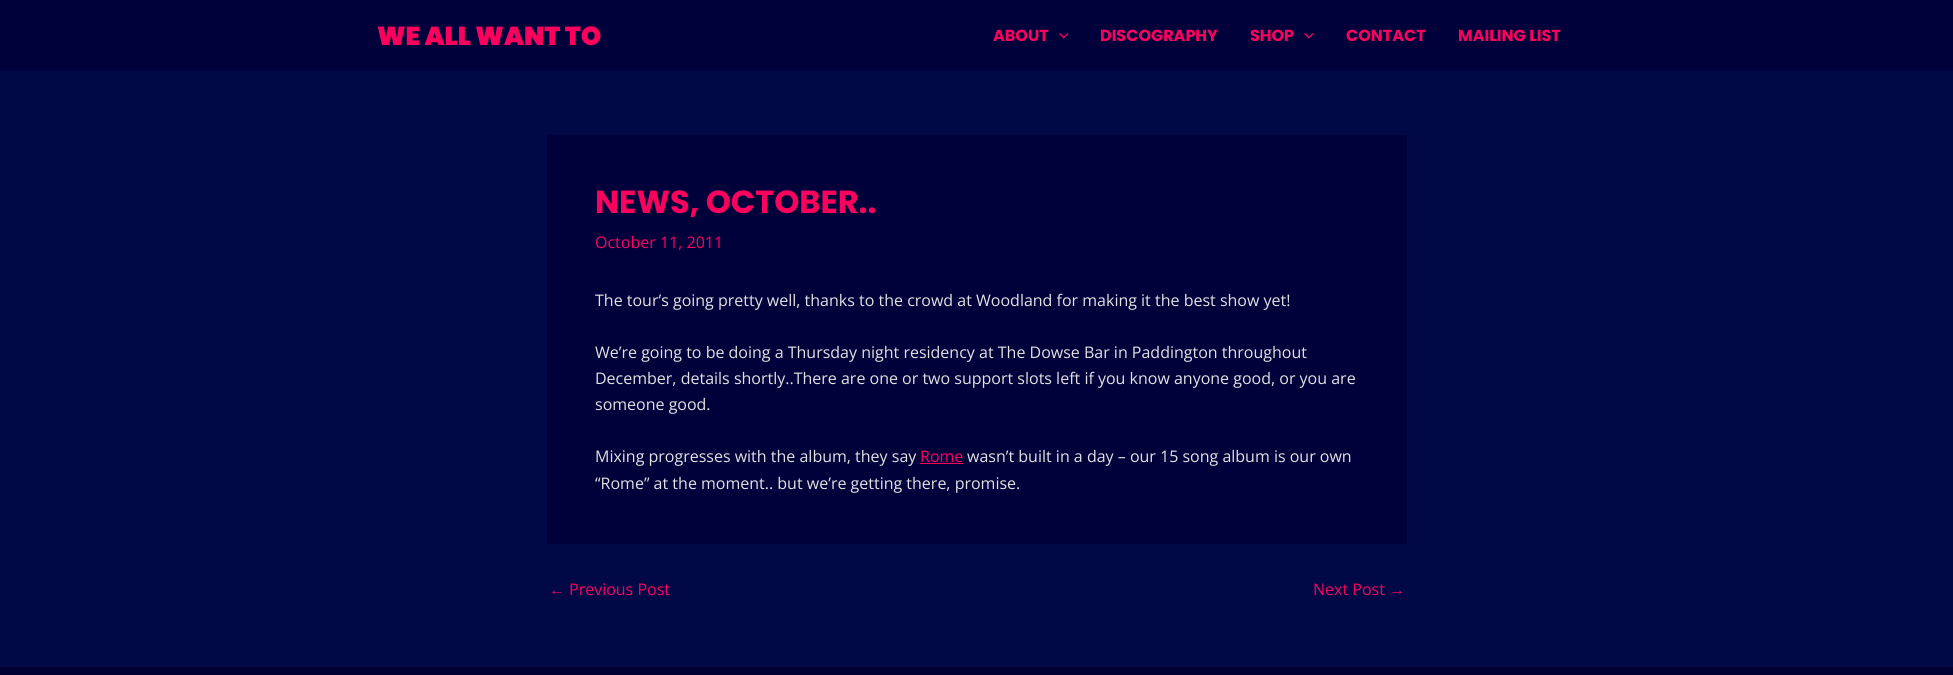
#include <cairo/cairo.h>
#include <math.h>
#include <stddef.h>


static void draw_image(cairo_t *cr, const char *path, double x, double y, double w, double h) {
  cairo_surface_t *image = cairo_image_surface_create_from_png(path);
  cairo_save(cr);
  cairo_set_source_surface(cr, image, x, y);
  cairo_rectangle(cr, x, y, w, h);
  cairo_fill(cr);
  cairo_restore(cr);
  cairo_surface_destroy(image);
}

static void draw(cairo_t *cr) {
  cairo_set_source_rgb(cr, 0, 9 / 255.0, 70 / 255.0);
  cairo_paint(cr);
  cairo_set_source_rgb(cr, 0, 0, 59 / 255.0);
  cairo_rectangle(cr, 0, 0, 1953, 71);
  cairo_fill(cr);
  draw_image(cr, "images/1.png", 1059, 33, 9, 6);
  draw_image(cr, "images/2.png", 1304, 33, 10, 6);
  cairo_rectangle(cr, 547, 135, 860, 409);
  cairo_fill(cr);
  cairo_set_source_rgb(cr, 253 / 255.0, 0, 93 / 255.0);
  cairo_rectangle(cr, 920, 463, 43, 1);
  cairo_fill(cr);
  cairo_set_source_rgb(cr, 0, 0, 50 / 255.0);
  cairo_rectangle(cr, 0, 667, 1953, 8);
  cairo_fill(cr);
  cairo_select_font_face(cr, "Poppins Black", CAIRO_FONT_SLANT_NORMAL, CAIRO_FONT_WEIGHT_NORMAL);
  cairo_set_font_size(cr, 26);
  cairo_set_source_rgb(cr, 253 / 255.0, 0, 93 / 255.0);
  cairo_move_to(cr, 377, 45);
  cairo_show_text(cr, "WE ALL WANT TO");
  cairo_select_font_face(cr, "Poppins", CAIRO_FONT_SLANT_NORMAL, CAIRO_FONT_WEIGHT_BOLD);
  cairo_set_font_size(cr, 16);
  cairo_move_to(cr, 993, 41);
  cairo_show_text(cr, "ABOUT");
  cairo_move_to(cr, 1100, 41);
  cairo_show_text(cr, "DISCOGRAPHY");
  cairo_move_to(cr, 1250, 41);
  cairo_show_text(cr, "SHOP");
  cairo_move_to(cr, 1346, 41);
  cairo_show_text(cr, "CONTACT");
  cairo_move_to(cr, 1458, 41);
  cairo_show_text(cr, "MAILING LIST");
  cairo_set_font_size(cr, 32);
  cairo_move_to(cr, 595, 213);
  cairo_show_text(cr, "NEWS, OCTOBER..");
  cairo_select_font_face(cr, "Open Sans", CAIRO_FONT_SLANT_NORMAL, CAIRO_FONT_WEIGHT_NORMAL);
  cairo_set_font_size(cr, 16);
  cairo_move_to(cr, 595, 248);
  cairo_show_text(cr, "October 11, 2011");
  cairo_set_source_rgb(cr, 226 / 255.0, 226 / 255.0, 226 / 255.0);
  cairo_move_to(cr, 595, 306);
  cairo_show_text(cr, "The tour’s going pretty well, thanks to the crowd at Woodland for making it the best show yet!");
  cairo_move_to(cr, 595, 358);
  cairo_show_text(cr, "We’re going to be doing a Thursday night residency at The Dowse Bar in Paddington throughout");
  cairo_move_to(cr, 595, 384);
  cairo_show_text(cr, "December, details shortly..There are one or two support slots left if you know anyone good, or you are");
  cairo_move_to(cr, 595, 410);
  cairo_show_text(cr, "someone good.");
  cairo_move_to(cr, 595, 462);
  cairo_show_text(cr, "Mixing progresses with the album, they say");
  cairo_set_source_rgb(cr, 253 / 255.0, 0, 93 / 255.0);
  cairo_move_to(cr, 920, 462);
  cairo_show_text(cr, "Rome");
  cairo_set_source_rgb(cr, 226 / 255.0, 226 / 255.0, 226 / 255.0);
  cairo_move_to(cr, 967, 462);
  cairo_show_text(cr, "wasn’t built in a day – our 15 song album is our own");
  cairo_move_to(cr, 595, 489);
  cairo_show_text(cr, "“Rome” at the moment.. but we’re getting there, promise.");
  cairo_select_font_face(cr, "Liberation Sans", CAIRO_FONT_SLANT_NORMAL, CAIRO_FONT_WEIGHT_NORMAL);
  cairo_set_source_rgb(cr, 253 / 255.0, 0, 93 / 255.0);
  cairo_move_to(cr, 549, 595);
  cairo_show_text(cr, "←");
  cairo_select_font_face(cr, "Open Sans", CAIRO_FONT_SLANT_NORMAL, CAIRO_FONT_WEIGHT_NORMAL);
  cairo_move_to(cr, 569, 595);
  cairo_show_text(cr, "Previous Post");
  cairo_move_to(cr, 1313, 595);
  cairo_show_text(cr, "Next Post");
  cairo_select_font_face(cr, "Liberation Sans", CAIRO_FONT_SLANT_NORMAL, CAIRO_FONT_WEIGHT_NORMAL);
  cairo_move_to(cr, 1389, 595);
  cairo_show_text(cr, "→");
}

int main(void) {
  cairo_surface_t *surface = cairo_image_surface_create(CAIRO_FORMAT_RGB24, 1953, 675);
  cairo_t *cr = cairo_create(surface);
  cairo_font_options_t *options = cairo_font_options_create();
  cairo_font_options_set_hint_metrics(options, CAIRO_HINT_METRICS_OFF);
  cairo_font_options_set_hint_style(options, CAIRO_HINT_STYLE_NONE);
  cairo_set_font_options(cr, options);
  cairo_set_miter_limit(cr, 4);
  draw(cr);
  cairo_surface_write_to_png(surface, "out.png");
  cairo_font_options_destroy(options);
  cairo_destroy(cr);
  cairo_surface_destroy(surface);
  return 0;
}
